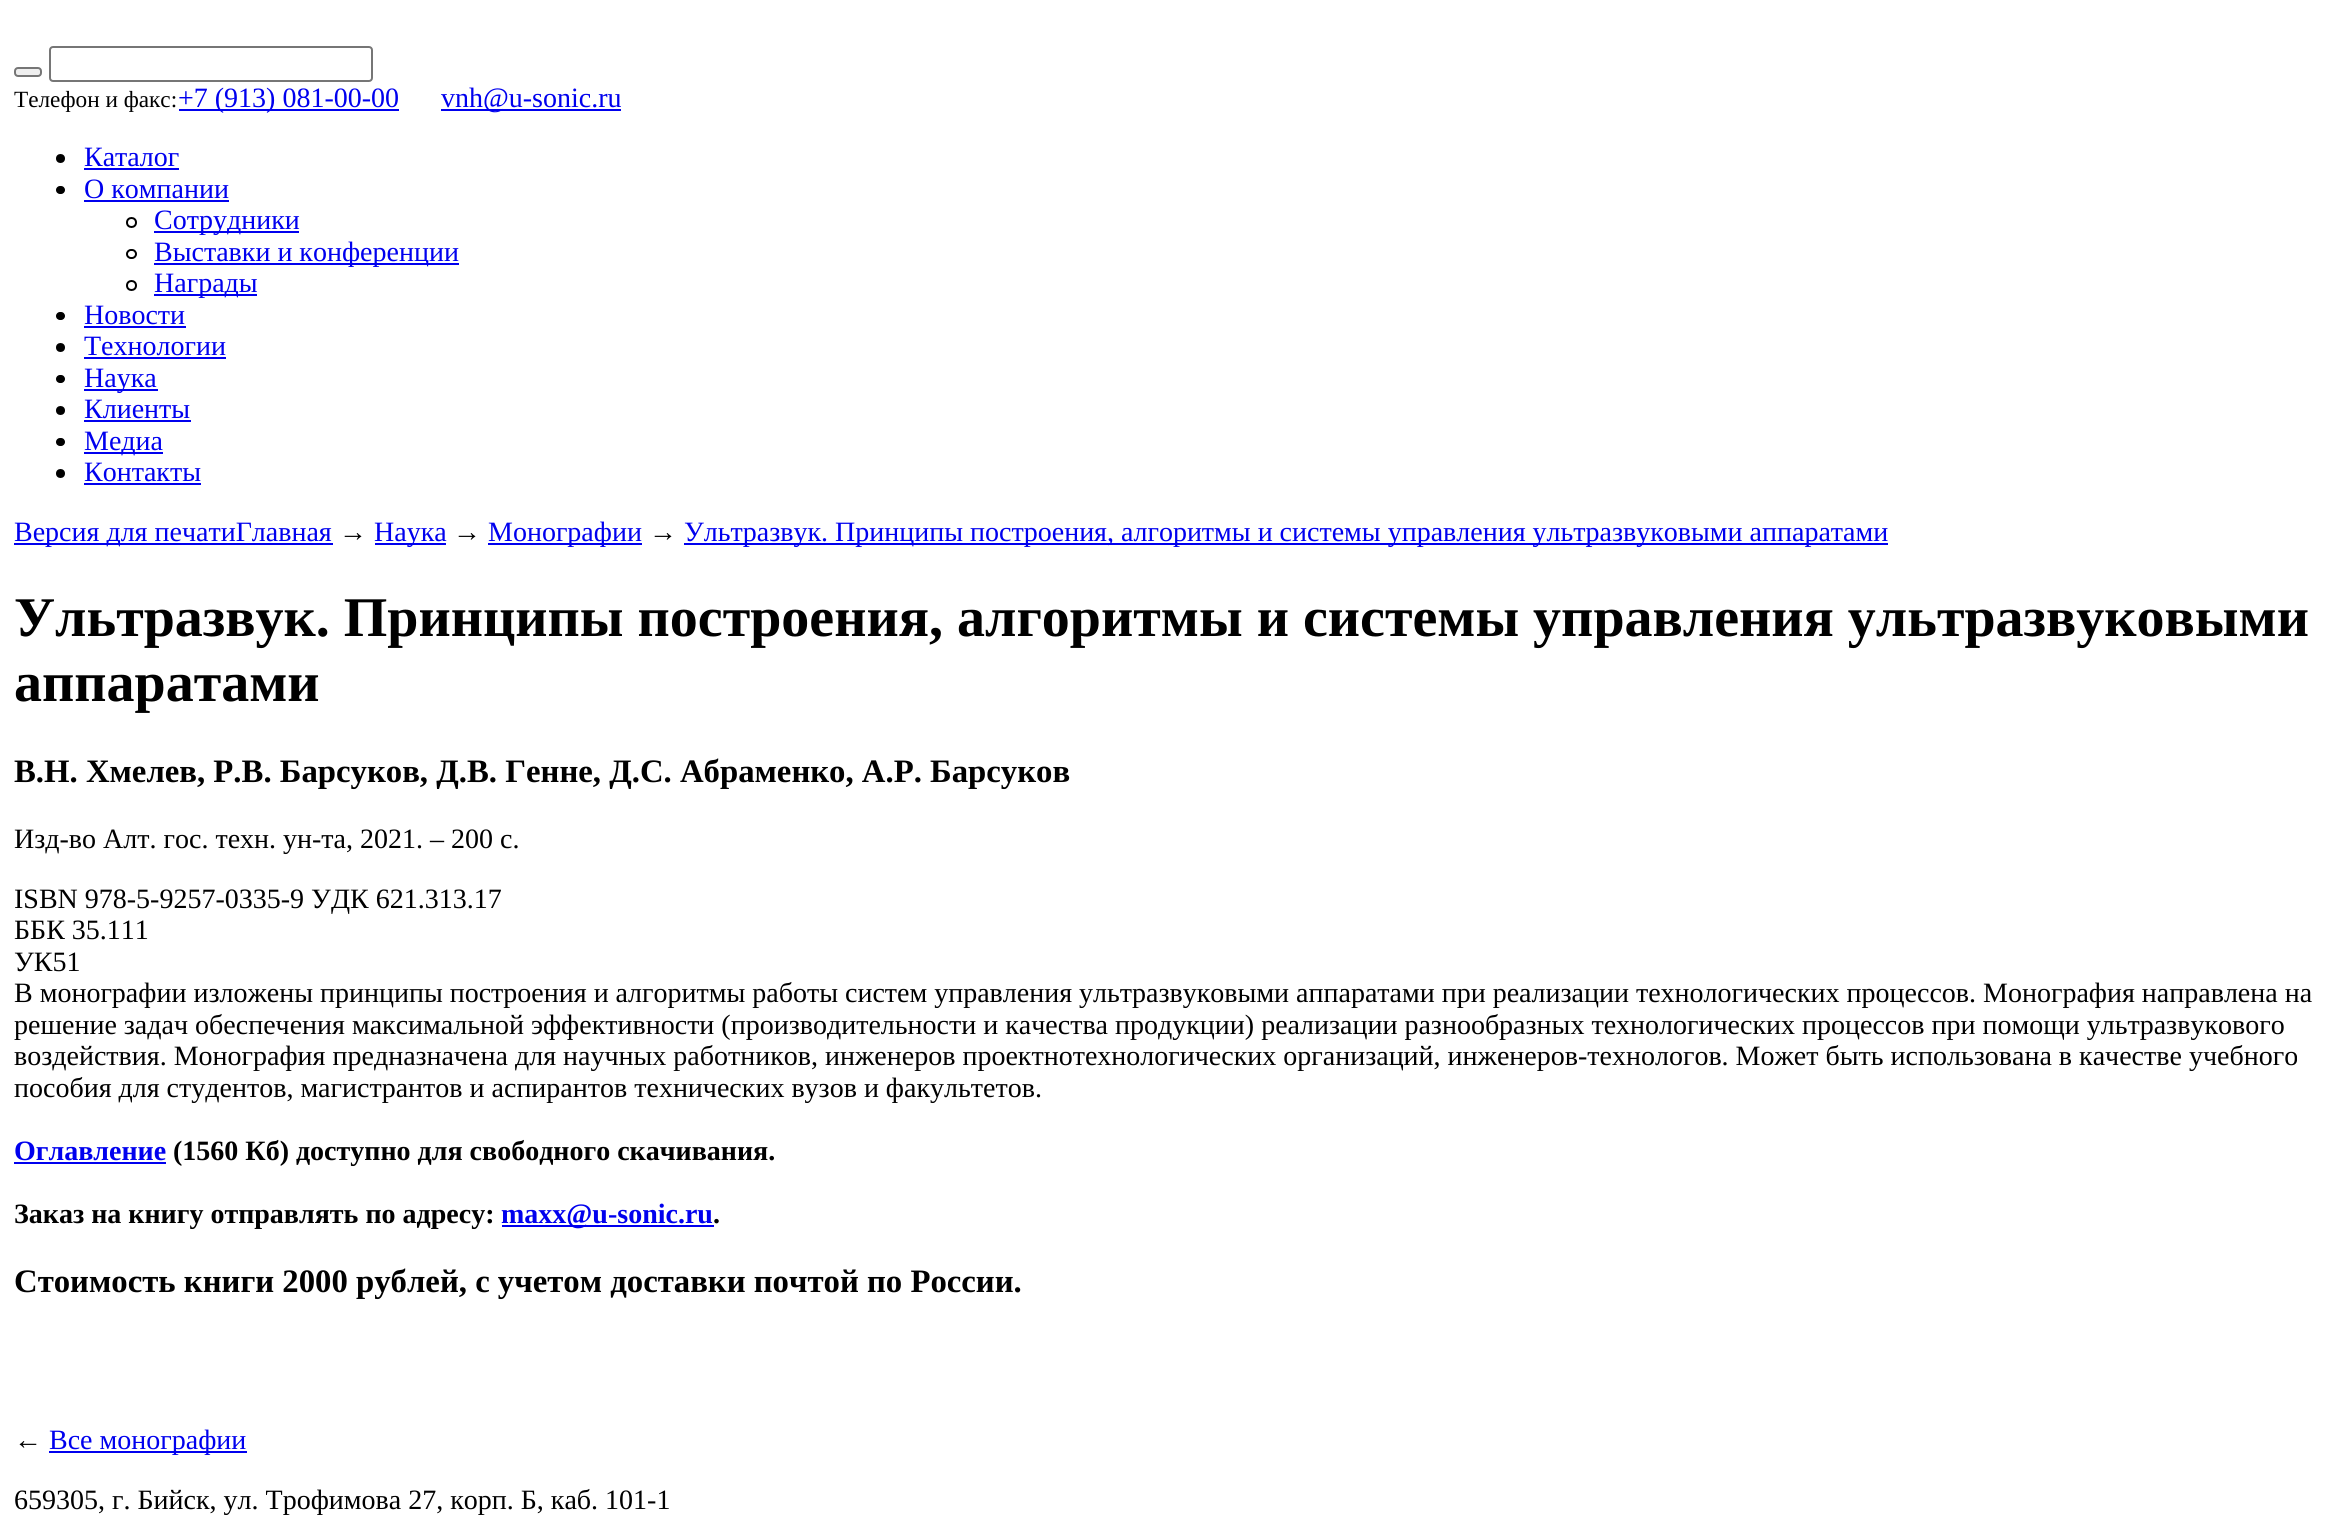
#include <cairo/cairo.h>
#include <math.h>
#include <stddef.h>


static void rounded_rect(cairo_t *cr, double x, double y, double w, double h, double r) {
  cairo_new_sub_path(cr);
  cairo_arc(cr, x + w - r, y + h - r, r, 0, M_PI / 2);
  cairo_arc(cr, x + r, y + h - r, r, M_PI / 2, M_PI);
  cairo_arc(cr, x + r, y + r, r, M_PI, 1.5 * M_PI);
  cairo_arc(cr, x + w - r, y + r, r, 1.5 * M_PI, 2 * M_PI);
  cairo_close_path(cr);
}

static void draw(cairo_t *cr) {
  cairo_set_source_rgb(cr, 1, 1, 1);
  cairo_paint(cr);
  cairo_set_source_rgb(cr, 239 / 255.0, 239 / 255.0, 239 / 255.0);
  rounded_rect(cr, 15, 68, 26, 8, 3);
  cairo_fill_preserve(cr);
  cairo_set_source_rgb(cr, 118 / 255.0, 118 / 255.0, 118 / 255.0);
  cairo_stroke(cr);
  rounded_rect(cr, 50, 47, 322, 34, 3);
  cairo_stroke(cr);
  cairo_set_source_rgb(cr, 0, 0, 238 / 255.0);
  cairo_rectangle(cr, 179, 109, 220, 2);
  cairo_fill(cr);
  cairo_rectangle(cr, 441, 109, 180, 2);
  cairo_fill(cr);
  cairo_set_source_rgb(cr, 0, 0, 0);
  cairo_arc(cr, 60.5, 158.5, 4.5, 0, 2 * M_PI);
  cairo_fill(cr);
  cairo_set_source_rgb(cr, 0, 0, 238 / 255.0);
  cairo_rectangle(cr, 84, 168, 95, 2);
  cairo_fill(cr);
  cairo_set_source_rgb(cr, 0, 0, 0);
  rounded_rect(cr, 56, 186, 9, 8, 4);
  cairo_fill(cr);
  cairo_set_source_rgb(cr, 0, 0, 238 / 255.0);
  cairo_rectangle(cr, 84, 200, 145, 2);
  cairo_fill(cr);
  cairo_arc(cr, 131.5, 222.5, 4.5, 0, 2 * M_PI);
  cairo_set_source_rgb(cr, 0, 0, 0);
  cairo_stroke(cr);
  cairo_set_source_rgb(cr, 0, 0, 238 / 255.0);
  cairo_rectangle(cr, 154, 231, 145, 2);
  cairo_fill(cr);
  rounded_rect(cr, 127, 250, 9, 8, 4);
  cairo_set_source_rgb(cr, 0, 0, 0);
  cairo_stroke(cr);
  cairo_set_source_rgb(cr, 0, 0, 238 / 255.0);
  cairo_rectangle(cr, 154, 263, 305, 2);
  cairo_fill(cr);
  cairo_arc(cr, 131.5, 285.5, 4.5, 0, 2 * M_PI);
  cairo_set_source_rgb(cr, 0, 0, 0);
  cairo_stroke(cr);
  cairo_set_source_rgb(cr, 0, 0, 238 / 255.0);
  cairo_rectangle(cr, 154, 294, 103, 2);
  cairo_fill(cr);
  cairo_set_source_rgb(cr, 0, 0, 0);
  rounded_rect(cr, 56, 312, 9, 8, 4);
  cairo_fill(cr);
  cairo_set_source_rgb(cr, 0, 0, 238 / 255.0);
  cairo_rectangle(cr, 84, 326, 102, 2);
  cairo_fill(cr);
  cairo_set_source_rgb(cr, 0, 0, 0);
  cairo_arc(cr, 60.5, 347.5, 4.5, 0, 2 * M_PI);
  cairo_fill(cr);
  cairo_set_source_rgb(cr, 0, 0, 238 / 255.0);
  cairo_rectangle(cr, 84, 357, 142, 2);
  cairo_fill(cr);
  cairo_set_source_rgb(cr, 0, 0, 0);
  rounded_rect(cr, 56, 375, 9, 8, 4);
  cairo_fill(cr);
  cairo_set_source_rgb(cr, 0, 0, 238 / 255.0);
  cairo_rectangle(cr, 84, 389, 74, 2);
  cairo_fill(cr);
  cairo_set_source_rgb(cr, 0, 0, 0);
  cairo_arc(cr, 60.5, 410.5, 4.5, 0, 2 * M_PI);
  cairo_fill(cr);
  cairo_set_source_rgb(cr, 0, 0, 238 / 255.0);
  cairo_rectangle(cr, 84, 420, 107, 2);
  cairo_fill(cr);
  cairo_set_source_rgb(cr, 0, 0, 0);
  rounded_rect(cr, 56, 438, 9, 8, 4);
  cairo_fill(cr);
  cairo_set_source_rgb(cr, 0, 0, 238 / 255.0);
  cairo_rectangle(cr, 84, 452, 79, 2);
  cairo_fill(cr);
  cairo_set_source_rgb(cr, 0, 0, 0);
  cairo_arc(cr, 60.5, 473.5, 4.5, 0, 2 * M_PI);
  cairo_fill(cr);
  cairo_set_source_rgb(cr, 0, 0, 238 / 255.0);
  cairo_rectangle(cr, 84, 483, 117, 2);
  cairo_fill(cr);
  cairo_rectangle(cr, 14, 543, 319, 2);
  cairo_fill(cr);
  cairo_rectangle(cr, 375, 543, 71, 2);
  cairo_fill(cr);
  cairo_rectangle(cr, 488, 543, 154, 2);
  cairo_fill(cr);
  cairo_rectangle(cr, 684, 543, 1204, 2);
  cairo_fill(cr);
  cairo_rectangle(cr, 14, 1162, 152, 2);
  cairo_fill(cr);
  cairo_rectangle(cr, 502, 1225, 212, 2);
  cairo_fill(cr);
  cairo_rectangle(cr, 49, 1451, 198, 2);
  cairo_fill(cr);
  cairo_select_font_face(cr, "Liberation Serif", CAIRO_FONT_SLANT_NORMAL, CAIRO_FONT_WEIGHT_NORMAL);
  cairo_set_font_size(cr, 23.25);
  cairo_set_source_rgb(cr, 0, 0, 0);
  cairo_move_to(cr, 14, 107);
  cairo_show_text(cr, "Телефон и факс:");
  cairo_set_font_size(cr, 28);
  cairo_set_source_rgb(cr, 0, 0, 238 / 255.0);
  cairo_move_to(cr, 178, 107);
  cairo_show_text(cr, "+7 (913) 081-00-00");
  cairo_move_to(cr, 441, 107);
  cairo_show_text(cr, "vnh@u-sonic.ru");
  cairo_move_to(cr, 84, 166);
  cairo_show_text(cr, "Каталог");
  cairo_move_to(cr, 84, 198);
  cairo_show_text(cr, "О компании");
  cairo_move_to(cr, 154, 229);
  cairo_show_text(cr, "Сотрудники");
  cairo_move_to(cr, 154, 261);
  cairo_show_text(cr, "Выставки и конференции");
  cairo_move_to(cr, 154, 292);
  cairo_show_text(cr, "Награды");
  cairo_move_to(cr, 84, 324);
  cairo_show_text(cr, "Новости");
  cairo_move_to(cr, 84, 355);
  cairo_show_text(cr, "Технологии");
  cairo_move_to(cr, 84, 387);
  cairo_show_text(cr, "Наука");
  cairo_move_to(cr, 84, 418);
  cairo_show_text(cr, "Клиенты");
  cairo_move_to(cr, 84, 450);
  cairo_show_text(cr, "Медиа");
  cairo_move_to(cr, 84, 481);
  cairo_show_text(cr, "Контакты");
  cairo_move_to(cr, 14, 541);
  cairo_show_text(cr, "Версия для печатиГлавная");
  cairo_set_source_rgb(cr, 0, 0, 0);
  cairo_move_to(cr, 339, 541);
  cairo_show_text(cr, "→");
  cairo_set_source_rgb(cr, 0, 0, 238 / 255.0);
  cairo_move_to(cr, 374, 541);
  cairo_show_text(cr, "Наука");
  cairo_set_source_rgb(cr, 0, 0, 0);
  cairo_move_to(cr, 453, 541);
  cairo_show_text(cr, "→");
  cairo_set_source_rgb(cr, 0, 0, 238 / 255.0);
  cairo_move_to(cr, 488, 541);
  cairo_show_text(cr, "Монографии");
  cairo_set_source_rgb(cr, 0, 0, 0);
  cairo_move_to(cr, 649, 541);
  cairo_show_text(cr, "→");
  cairo_set_source_rgb(cr, 0, 0, 238 / 255.0);
  cairo_move_to(cr, 684, 541);
  cairo_show_text(cr, "Ультразвук. Принципы построения, алгоритмы и системы управления ультразвуковыми аппаратами");
  cairo_select_font_face(cr, "Liberation Serif", CAIRO_FONT_SLANT_NORMAL, CAIRO_FONT_WEIGHT_BOLD);
  cairo_set_font_size(cr, 56);
  cairo_set_source_rgb(cr, 0, 0, 0);
  cairo_move_to(cr, 14, 636);
  cairo_show_text(cr, "Ультразвук. Принципы построения, алгоритмы и системы управления ультразвуковыми");
  cairo_move_to(cr, 14, 701);
  cairo_show_text(cr, "аппаратами");
  cairo_set_font_size(cr, 32.75);
  cairo_move_to(cr, 14, 782);
  cairo_show_text(cr, "В.Н. Хмелев, Р.В. Барсуков, Д.В. Генне, Д.С. Абраменко, А.Р. Барсуков");
  cairo_select_font_face(cr, "Liberation Serif", CAIRO_FONT_SLANT_NORMAL, CAIRO_FONT_WEIGHT_NORMAL);
  cairo_set_font_size(cr, 28);
  cairo_move_to(cr, 14, 848);
  cairo_show_text(cr, "Изд-во Алт. гос. техн. ун-та, 2021. – 200 с.");
  cairo_move_to(cr, 14, 908);
  cairo_show_text(cr, "ISBN 978-5-9257-0335-9 УДК 621.313.17");
  cairo_move_to(cr, 14, 939);
  cairo_show_text(cr, "ББК 35.111");
  cairo_move_to(cr, 14, 971);
  cairo_show_text(cr, "УК51");
  cairo_move_to(cr, 14, 1002);
  cairo_show_text(cr, "В монографии изложены принципы построения и алгоритмы работы систем управления ультразвуковыми аппаратами при реализации технологических процессов. Монография направлена на");
  cairo_move_to(cr, 14, 1034);
  cairo_show_text(cr, "решение задач обеспечения максимальной эффективности (производительности и качества продукции) реализации разнообразных технологических процессов при помощи ультразвукового");
  cairo_move_to(cr, 14, 1065);
  cairo_show_text(cr, "воздействия. Монография предназначена для научных работников, инженеров проектнотехнологических организаций, инженеров-технологов. Может быть использована в качестве учебного");
  cairo_move_to(cr, 14, 1097);
  cairo_show_text(cr, "пособия для студентов, магистрантов и аспирантов технических вузов и факультетов.");
  cairo_select_font_face(cr, "Liberation Serif", CAIRO_FONT_SLANT_NORMAL, CAIRO_FONT_WEIGHT_BOLD);
  cairo_set_source_rgb(cr, 0, 0, 238 / 255.0);
  cairo_move_to(cr, 14, 1160);
  cairo_show_text(cr, "Оглавление");
  cairo_set_source_rgb(cr, 0, 0, 0);
  cairo_move_to(cr, 173, 1160);
  cairo_show_text(cr, "(1560 Кб) доступно для свободного скачивания.");
  cairo_move_to(cr, 14, 1223);
  cairo_show_text(cr, "Заказ на книгу отправлять по адресу:");
  cairo_set_source_rgb(cr, 0, 0, 238 / 255.0);
  cairo_move_to(cr, 501, 1223);
  cairo_show_text(cr, "maxx@u-sonic.ru");
  cairo_set_source_rgb(cr, 0, 0, 0);
  cairo_move_to(cr, 713, 1223);
  cairo_show_text(cr, ".");
  cairo_set_font_size(cr, 32.75);
  cairo_move_to(cr, 14, 1292);
  cairo_show_text(cr, "Стоимость книги 2000 рублей, с учетом доставки почтой по России.");
  cairo_set_font_size(cr, 28);
  cairo_move_to(cr, 14, 1449);
  cairo_show_text(cr, "←");
  cairo_select_font_face(cr, "Liberation Serif", CAIRO_FONT_SLANT_NORMAL, CAIRO_FONT_WEIGHT_NORMAL);
  cairo_set_source_rgb(cr, 0, 0, 238 / 255.0);
  cairo_move_to(cr, 49, 1449);
  cairo_show_text(cr, "Все монографии");
  cairo_set_source_rgb(cr, 0, 0, 0);
  cairo_move_to(cr, 14, 1509);
  cairo_show_text(cr, "659305, г. Бийск, ул. Трофимова 27, корп. Б, каб. 101-1");
}

int main(void) {
  cairo_surface_t *surface = cairo_image_surface_create(CAIRO_FORMAT_RGB24, 2349, 1515);
  cairo_t *cr = cairo_create(surface);
  cairo_font_options_t *options = cairo_font_options_create();
  cairo_font_options_set_hint_metrics(options, CAIRO_HINT_METRICS_OFF);
  cairo_font_options_set_hint_style(options, CAIRO_HINT_STYLE_NONE);
  cairo_set_font_options(cr, options);
  cairo_set_miter_limit(cr, 4);
  draw(cr);
  cairo_surface_write_to_png(surface, "out.png");
  cairo_font_options_destroy(options);
  cairo_destroy(cr);
  cairo_surface_destroy(surface);
  return 0;
}
